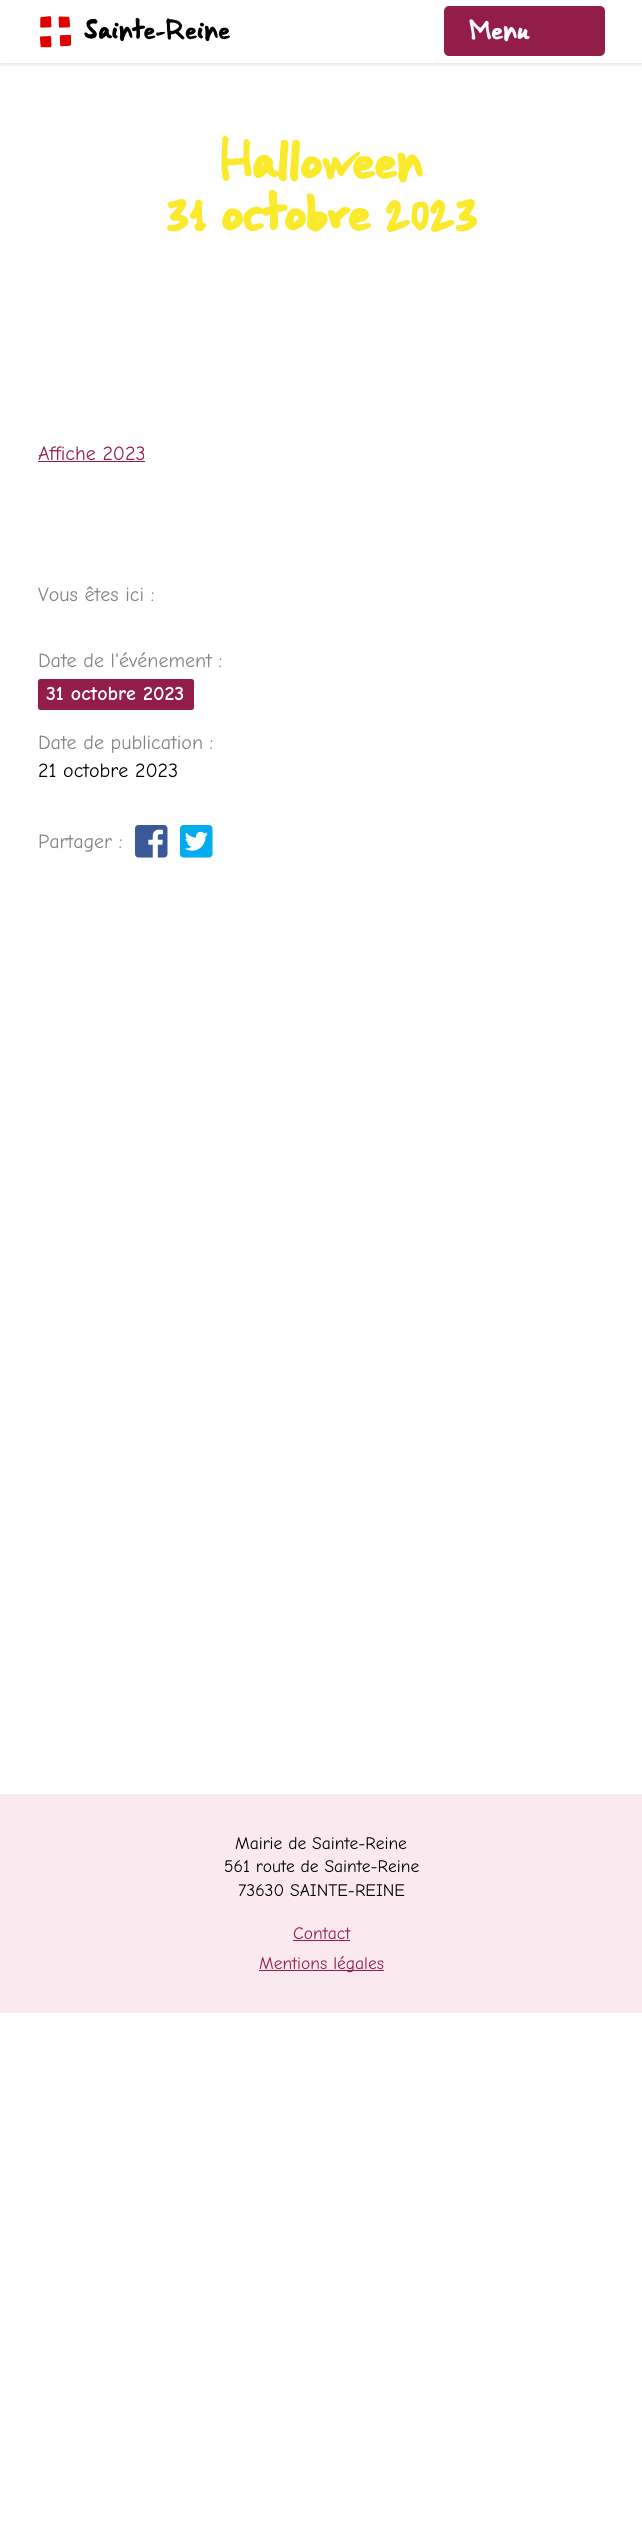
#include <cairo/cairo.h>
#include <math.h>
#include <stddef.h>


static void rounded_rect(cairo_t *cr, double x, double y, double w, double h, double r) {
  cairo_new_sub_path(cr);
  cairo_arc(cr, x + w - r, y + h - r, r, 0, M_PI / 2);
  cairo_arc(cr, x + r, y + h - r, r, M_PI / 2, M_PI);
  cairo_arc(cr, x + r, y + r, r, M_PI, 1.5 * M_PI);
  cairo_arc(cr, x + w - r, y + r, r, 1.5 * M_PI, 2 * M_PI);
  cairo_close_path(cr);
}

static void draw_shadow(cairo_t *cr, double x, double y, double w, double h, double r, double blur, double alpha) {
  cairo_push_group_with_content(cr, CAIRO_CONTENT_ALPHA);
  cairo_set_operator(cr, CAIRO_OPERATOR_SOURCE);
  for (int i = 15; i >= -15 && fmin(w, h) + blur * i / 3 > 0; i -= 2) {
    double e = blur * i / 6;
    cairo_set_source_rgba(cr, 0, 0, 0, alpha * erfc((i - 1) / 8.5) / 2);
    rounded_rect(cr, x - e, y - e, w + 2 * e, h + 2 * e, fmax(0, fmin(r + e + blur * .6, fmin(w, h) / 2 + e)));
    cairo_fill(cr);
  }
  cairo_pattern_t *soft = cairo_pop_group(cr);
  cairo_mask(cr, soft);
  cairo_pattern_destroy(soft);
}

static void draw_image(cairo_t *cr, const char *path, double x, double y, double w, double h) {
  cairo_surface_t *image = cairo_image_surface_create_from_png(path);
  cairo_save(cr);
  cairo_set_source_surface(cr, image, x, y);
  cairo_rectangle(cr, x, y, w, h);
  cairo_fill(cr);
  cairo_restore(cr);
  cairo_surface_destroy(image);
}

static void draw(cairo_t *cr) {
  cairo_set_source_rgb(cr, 1, 1, 1);
  cairo_paint(cr);
  cairo_set_source_rgb(cr, 0, 0, 0);
  draw_shadow(cr, 0, 0, 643, 63, 0, 3, 0.2);
  cairo_set_source_rgb(cr, 1, 1, 1);
  cairo_rectangle(cr, 0, 0, 642, 63);
  cairo_fill(cr);
  cairo_set_source_rgb(cr, 146 / 255.0, 29 / 255.0, 73 / 255.0);
  rounded_rect(cr, 444, 6, 161, 50, 5);
  cairo_fill(cr);
  draw_image(cr, "images/1.png", 39, 16, 191, 32);
  cairo_rectangle(cr, 38, 461, 107, 1);
  cairo_fill(cr);
  rounded_rect(cr, 38, 679, 156, 31, 2.5);
  cairo_fill(cr);
  draw_image(cr, "images/2.png", 135, 825, 33, 33);
  draw_image(cr, "images/3.png", 180, 825, 33, 33);
  cairo_set_source_rgb(cr, 250 / 255.0, 234 / 255.0, 240 / 255.0);
  cairo_rectangle(cr, 0, 1794, 642, 219);
  cairo_fill(cr);
  cairo_set_source_rgb(cr, 146 / 255.0, 29 / 255.0, 73 / 255.0);
  cairo_rectangle(cr, 293, 1940, 57, 1);
  cairo_fill(cr);
  cairo_rectangle(cr, 259, 1970, 125, 1);
  cairo_fill(cr);
  cairo_select_font_face(cr, "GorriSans", CAIRO_FONT_SLANT_NORMAL, CAIRO_FONT_WEIGHT_NORMAL);
  cairo_set_font_size(cr, 20);
  cairo_set_source_rgb(cr, 1, 1, 1);
  cairo_move_to(cr, 469, 39);
  cairo_show_text(cr, "Menu");
  cairo_select_font_face(cr, "GorriSans", CAIRO_FONT_SLANT_NORMAL, CAIRO_FONT_WEIGHT_BOLD);
  cairo_set_font_size(cr, 37.5);
  cairo_set_source_rgb(cr, 250 / 255.0, 234 / 255.0, 43 / 255.0);
  cairo_move_to(cr, 220, 178);
  cairo_show_text(cr, "Halloween");
  cairo_move_to(cr, 166, 230);
  cairo_show_text(cr, "31 octobre 2023");
  cairo_select_font_face(cr, "Comic Neue", CAIRO_FONT_SLANT_NORMAL, CAIRO_FONT_WEIGHT_NORMAL);
  cairo_set_font_size(cr, 20);
  cairo_set_source_rgb(cr, 146 / 255.0, 29 / 255.0, 73 / 255.0);
  cairo_move_to(cr, 38, 460);
  cairo_show_text(cr, "Affiche 2023");
  cairo_set_source_rgb(cr, 130 / 255.0, 130 / 255.0, 130 / 255.0);
  cairo_move_to(cr, 38, 601);
  cairo_show_text(cr, "Vous êtes ici :");
  cairo_move_to(cr, 38, 667);
  cairo_show_text(cr, "Date de l'événement :");
  cairo_select_font_face(cr, "Comic Neue", CAIRO_FONT_SLANT_NORMAL, CAIRO_FONT_WEIGHT_BOLD);
  cairo_set_source_rgb(cr, 1, 1, 1);
  cairo_move_to(cr, 46, 700);
  cairo_show_text(cr, "31 octobre 2023");
  cairo_select_font_face(cr, "Comic Neue", CAIRO_FONT_SLANT_NORMAL, CAIRO_FONT_WEIGHT_NORMAL);
  cairo_set_source_rgb(cr, 130 / 255.0, 130 / 255.0, 130 / 255.0);
  cairo_move_to(cr, 38, 749);
  cairo_show_text(cr, "Date de publication :");
  cairo_set_source_rgb(cr, 0, 0, 0);
  cairo_move_to(cr, 38, 777);
  cairo_show_text(cr, "21 octobre 2023");
  cairo_set_source_rgb(cr, 130 / 255.0, 130 / 255.0, 130 / 255.0);
  cairo_move_to(cr, 38, 848);
  cairo_show_text(cr, "Partager :");
  cairo_set_font_size(cr, 17.5);
  cairo_set_source_rgb(cr, 0, 0, 0);
  cairo_move_to(cr, 235, 1849);
  cairo_show_text(cr, "Mairie de Sainte-Reine");
  cairo_move_to(cr, 224, 1872);
  cairo_show_text(cr, "561 route de Sainte-Reine");
  cairo_move_to(cr, 238, 1896);
  cairo_show_text(cr, "73630 SAINTE-REINE");
  cairo_set_source_rgb(cr, 146 / 255.0, 29 / 255.0, 73 / 255.0);
  cairo_move_to(cr, 293, 1939);
  cairo_show_text(cr, "Contact");
  cairo_move_to(cr, 259, 1969);
  cairo_show_text(cr, "Mentions légales");
}

int main(void) {
  cairo_surface_t *surface = cairo_image_surface_create(CAIRO_FORMAT_RGB24, 642, 2539);
  cairo_t *cr = cairo_create(surface);
  cairo_font_options_t *options = cairo_font_options_create();
  cairo_font_options_set_hint_metrics(options, CAIRO_HINT_METRICS_OFF);
  cairo_font_options_set_hint_style(options, CAIRO_HINT_STYLE_NONE);
  cairo_set_font_options(cr, options);
  cairo_set_miter_limit(cr, 4);
  draw(cr);
  cairo_surface_write_to_png(surface, "out.png");
  cairo_font_options_destroy(options);
  cairo_destroy(cr);
  cairo_surface_destroy(surface);
  return 0;
}
